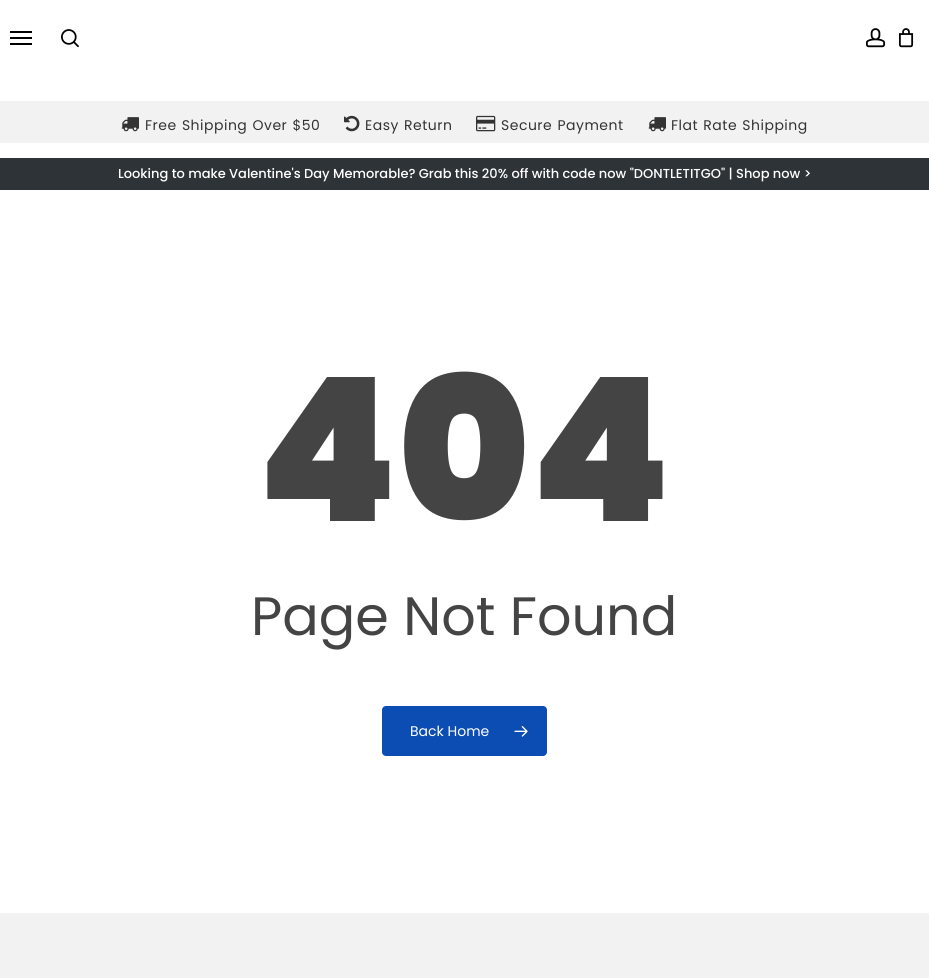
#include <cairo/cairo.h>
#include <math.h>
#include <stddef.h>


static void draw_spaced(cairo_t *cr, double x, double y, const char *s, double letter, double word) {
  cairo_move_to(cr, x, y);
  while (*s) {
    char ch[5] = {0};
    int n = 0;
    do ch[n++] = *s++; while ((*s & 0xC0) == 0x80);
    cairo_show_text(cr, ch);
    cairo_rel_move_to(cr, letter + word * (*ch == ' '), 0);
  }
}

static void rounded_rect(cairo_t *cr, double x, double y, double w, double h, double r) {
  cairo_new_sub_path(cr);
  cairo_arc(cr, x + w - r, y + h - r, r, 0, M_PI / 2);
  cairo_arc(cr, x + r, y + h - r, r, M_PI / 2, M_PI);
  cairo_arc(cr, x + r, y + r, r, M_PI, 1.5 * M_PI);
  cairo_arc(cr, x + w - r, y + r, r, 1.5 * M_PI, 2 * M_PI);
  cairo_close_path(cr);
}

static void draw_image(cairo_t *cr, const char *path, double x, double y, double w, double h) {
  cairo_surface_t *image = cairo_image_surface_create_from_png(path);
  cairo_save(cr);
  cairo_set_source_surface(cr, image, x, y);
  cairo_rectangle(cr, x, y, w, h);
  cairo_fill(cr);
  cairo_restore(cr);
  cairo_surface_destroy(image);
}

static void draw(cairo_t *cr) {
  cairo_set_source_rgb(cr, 1, 1, 1);
  cairo_paint(cr);
  cairo_set_source_rgb(cr, 0, 0, 0);
  cairo_rectangle(cr, 10, 31, 22, 2);
  cairo_fill(cr);
  cairo_rectangle(cr, 10, 43, 22, 2);
  cairo_fill(cr);
  cairo_rectangle(cr, 10, 37, 22, 2);
  cairo_fill(cr);
  draw_image(cr, "images/1.png", 61, 29, 18, 19);
  draw_image(cr, "images/2.png", 866, 28, 19, 20);
  draw_image(cr, "images/3.png", 899, 28, 15, 20);
  cairo_set_source_rgb(cr, 242 / 255.0, 242 / 255.0, 242 / 255.0);
  cairo_rectangle(cr, 0, 101, 929, 42);
  cairo_fill(cr);
  draw_image(cr, "images/4.png", 121, 117, 18, 15);
  draw_image(cr, "images/5.png", 344, 115, 16, 17);
  draw_image(cr, "images/6.png", 476, 115, 20, 17);
  draw_image(cr, "images/4.png", 648, 117, 18, 15);
  cairo_set_source_rgb(cr, 46 / 255.0, 51 / 255.0, 55 / 255.0);
  cairo_rectangle(cr, 0, 158, 929, 32);
  cairo_fill(cr);
  cairo_set_source_rgb(cr, 12 / 255.0, 77 / 255.0, 179 / 255.0);
  rounded_rect(cr, 382, 706, 165, 50, 4);
  cairo_fill(cr);
  draw_image(cr, "images/7.png", 514, 726, 14, 11);
  cairo_set_source_rgb(cr, 242 / 255.0, 242 / 255.0, 242 / 255.0);
  cairo_rectangle(cr, 0, 913, 929, 65);
  cairo_fill(cr);
  cairo_select_font_face(cr, "Poppins", CAIRO_FONT_SLANT_NORMAL, CAIRO_FONT_WEIGHT_NORMAL);
  cairo_set_font_size(cr, 14);
  cairo_set_source_rgb(cr, 51 / 255.0, 51 / 255.0, 51 / 255.0);
  draw_spaced(cr, 145, 130, "Free Shipping Over $50", 0.5, 1);
  draw_spaced(cr, 365, 130, "Easy Return", 0.5, 1);
  draw_spaced(cr, 501, 130, "Secure Payment", 0.5, 1);
  draw_spaced(cr, 671, 130, "Flat Rate Shipping", 0.5, 1);
  cairo_select_font_face(cr, "Poppins Medium", CAIRO_FONT_SLANT_NORMAL, CAIRO_FONT_WEIGHT_NORMAL);
  cairo_set_font_size(cr, 13);
  cairo_set_source_rgb(cr, 1, 1, 1);
  cairo_move_to(cr, 118, 178);
  cairo_show_text(cr, "Looking to make Valentine's Day Memorable? Grab this 20% off with code now \"DONTLETITGO\" | Shop now >");
  cairo_select_font_face(cr, "Poppins Black", CAIRO_FONT_SLANT_NORMAL, CAIRO_FONT_WEIGHT_NORMAL);
  cairo_set_font_size(cr, 200);
  cairo_set_source_rgb(cr, 68 / 255.0, 68 / 255.0, 68 / 255.0);
  cairo_move_to(cr, 257, 521);
  cairo_show_text(cr, "404");
  cairo_select_font_face(cr, "Poppins", CAIRO_FONT_SLANT_NORMAL, CAIRO_FONT_WEIGHT_NORMAL);
  cairo_set_font_size(cr, 54);
  cairo_move_to(cr, 251, 635);
  cairo_show_text(cr, "Page Not Found");
  cairo_set_font_size(cr, 14);
  cairo_set_source_rgb(cr, 1, 1, 1);
  cairo_move_to(cr, 410, 736);
  cairo_show_text(cr, "Back Home");
}

int main(void) {
  cairo_surface_t *surface = cairo_image_surface_create(CAIRO_FORMAT_RGB24, 929, 978);
  cairo_t *cr = cairo_create(surface);
  cairo_font_options_t *options = cairo_font_options_create();
  cairo_font_options_set_hint_metrics(options, CAIRO_HINT_METRICS_OFF);
  cairo_font_options_set_hint_style(options, CAIRO_HINT_STYLE_NONE);
  cairo_set_font_options(cr, options);
  cairo_set_miter_limit(cr, 4);
  draw(cr);
  cairo_surface_write_to_png(surface, "out.png");
  cairo_font_options_destroy(options);
  cairo_destroy(cr);
  cairo_surface_destroy(surface);
  return 0;
}
